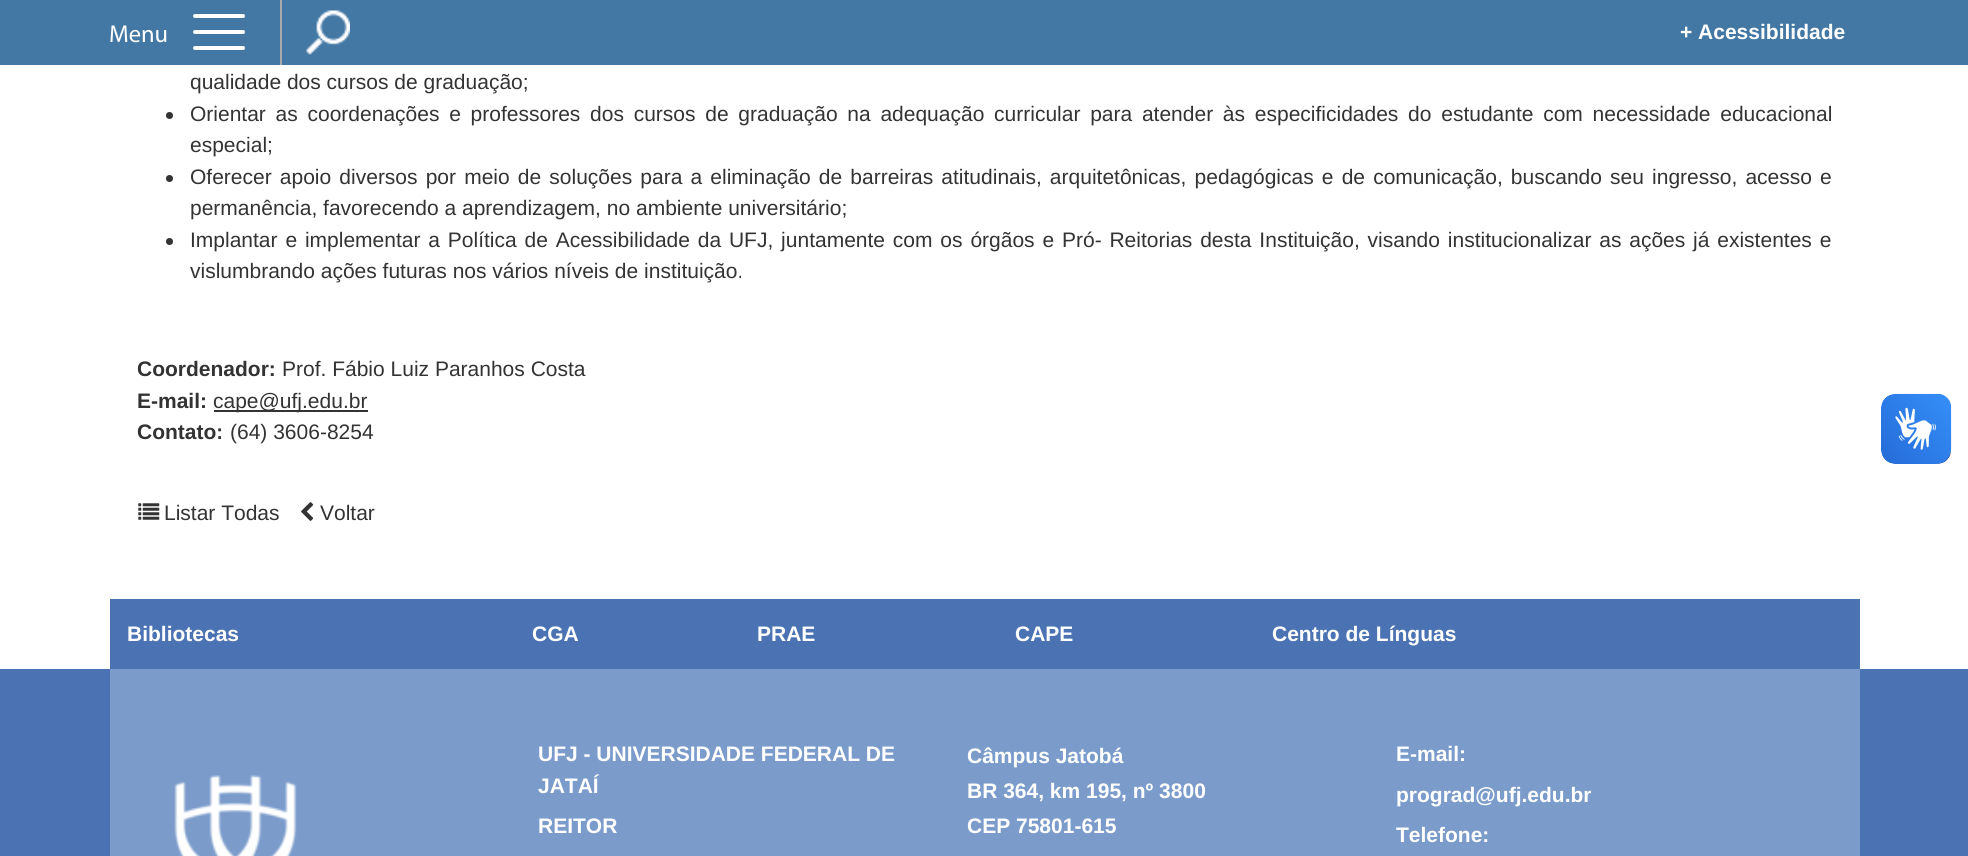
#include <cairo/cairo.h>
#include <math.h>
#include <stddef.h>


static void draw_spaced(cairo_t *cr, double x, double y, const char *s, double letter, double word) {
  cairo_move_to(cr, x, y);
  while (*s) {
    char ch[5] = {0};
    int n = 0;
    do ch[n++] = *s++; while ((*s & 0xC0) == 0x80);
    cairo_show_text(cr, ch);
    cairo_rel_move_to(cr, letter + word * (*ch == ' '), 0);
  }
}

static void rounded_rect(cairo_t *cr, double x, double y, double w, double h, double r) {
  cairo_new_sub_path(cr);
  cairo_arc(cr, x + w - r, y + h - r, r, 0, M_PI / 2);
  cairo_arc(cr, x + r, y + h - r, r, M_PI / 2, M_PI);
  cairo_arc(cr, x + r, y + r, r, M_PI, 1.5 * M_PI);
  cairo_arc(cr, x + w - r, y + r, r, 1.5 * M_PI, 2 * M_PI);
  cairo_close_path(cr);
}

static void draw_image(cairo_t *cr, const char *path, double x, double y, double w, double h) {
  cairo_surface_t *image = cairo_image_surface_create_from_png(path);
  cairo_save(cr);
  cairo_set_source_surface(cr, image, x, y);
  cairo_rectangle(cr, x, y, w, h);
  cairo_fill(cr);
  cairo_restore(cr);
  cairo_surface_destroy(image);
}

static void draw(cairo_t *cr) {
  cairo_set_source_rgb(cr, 1, 1, 1);
  cairo_paint(cr);
  cairo_set_source_rgb(cr, 68 / 255.0, 120 / 255.0, 164 / 255.0);
  cairo_rectangle(cr, 0, 0, 1968, 65);
  cairo_fill(cr);
  cairo_set_source_rgb(cr, 170 / 255.0, 170 / 255.0, 170 / 255.0);
  cairo_rectangle(cr, 280, 0, 2, 65);
  cairo_fill(cr);
  cairo_set_source_rgb(cr, 1, 1, 1);
  rounded_rect(cr, 193, 30, 52, 4, 2);
  cairo_fill(cr);
  rounded_rect(cr, 193, 14, 52, 4, 2);
  cairo_fill(cr);
  rounded_rect(cr, 193, 46, 52, 4, 2);
  cairo_fill(cr);
  draw_image(cr, "images/1.png", 306, 10, 44, 45);
  cairo_set_source_rgb(cr, 51 / 255.0, 51 / 255.0, 51 / 255.0);
  cairo_arc(cr, 169.5, 115.5, 3.5, 0, 2 * M_PI);
  cairo_fill(cr);
  cairo_arc(cr, 169.5, 178.5, 3.5, 0, 2 * M_PI);
  cairo_fill(cr);
  cairo_arc(cr, 169.5, 241.5, 3.5, 0, 2 * M_PI);
  cairo_fill(cr);
  cairo_rectangle(cr, 214, 410, 154, 2);
  cairo_fill(cr);
  draw_image(cr, "images/2.png", 138, 503, 22, 17);
  draw_image(cr, "images/3.png", 301, 502, 13, 19);
  draw_image(cr, "images/4.png", 1881, 393, 71, 71);
  draw_image(cr, "images/5.png", 1881, 394, 70, 70);
  cairo_set_source_rgb(cr, 75 / 255.0, 115 / 255.0, 179 / 255.0);
  cairo_rectangle(cr, 110, 599, 1750, 70);
  cairo_fill(cr);
  cairo_rectangle(cr, 0, 669, 1968, 187);
  cairo_fill(cr);
  cairo_set_source_rgb(cr, 123 / 255.0, 156 / 255.0, 203 / 255.0);
  cairo_rectangle(cr, 110, 669, 1750, 187);
  cairo_fill(cr);
  draw_image(cr, "images/6.png", 174, 775, 123, 81);
  cairo_select_font_face(cr, "Myriad", CAIRO_FONT_SLANT_NORMAL, CAIRO_FONT_WEIGHT_NORMAL);
  cairo_set_font_size(cr, 24.5);
  cairo_set_source_rgb(cr, 1, 1, 1);
  cairo_move_to(cr, 109, 42);
  cairo_show_text(cr, "Menu");
  cairo_select_font_face(cr, "Liberation Sans", CAIRO_FONT_SLANT_NORMAL, CAIRO_FONT_WEIGHT_BOLD);
  cairo_set_font_size(cr, 21);
  cairo_move_to(cr, 1680, 39);
  cairo_show_text(cr, "+ Acessibilidade");
  cairo_select_font_face(cr, "Liberation Sans", CAIRO_FONT_SLANT_NORMAL, CAIRO_FONT_WEIGHT_NORMAL);
  cairo_set_source_rgb(cr, 51 / 255.0, 51 / 255.0, 51 / 255.0);
  cairo_move_to(cr, 190, 89);
  cairo_show_text(cr, "qualidade dos cursos de graduação;");
  draw_spaced(cr, 190, 121, "Orientar as coordenações e professores dos cursos de graduação na adequação curricular para atender às especificidades do estudante com necessidade educacional", 0, 3.9);
  cairo_move_to(cr, 190, 152);
  cairo_show_text(cr, "especial;");
  draw_spaced(cr, 190, 184, "Oferecer apoio diversos por meio de soluções para a eliminação de barreiras atitudinais, arquitetônicas, pedagógicas e de comunicação, buscando seu ingresso, acesso e", 0, 2.3);
  cairo_move_to(cr, 190, 215);
  cairo_show_text(cr, "permanência, favorecendo a aprendizagem, no ambiente universitário;");
  draw_spaced(cr, 190, 247, "Implantar e implementar a Política de Acessibilidade da UFJ, juntamente com os órgãos e Pró- Reitorias desta Instituição, visando institucionalizar as ações já existentes e", 0, 2);
  cairo_move_to(cr, 190, 278);
  cairo_show_text(cr, "vislumbrando ações futuras nos vários níveis de instituição.");
  cairo_select_font_face(cr, "Liberation Sans", CAIRO_FONT_SLANT_NORMAL, CAIRO_FONT_WEIGHT_BOLD);
  cairo_move_to(cr, 137, 376);
  cairo_show_text(cr, "Coordenador:");
  cairo_select_font_face(cr, "Liberation Sans", CAIRO_FONT_SLANT_NORMAL, CAIRO_FONT_WEIGHT_NORMAL);
  cairo_move_to(cr, 282, 376);
  cairo_show_text(cr, "Prof. Fábio Luiz Paranhos Costa");
  cairo_select_font_face(cr, "Liberation Sans", CAIRO_FONT_SLANT_NORMAL, CAIRO_FONT_WEIGHT_BOLD);
  cairo_move_to(cr, 137, 408);
  cairo_show_text(cr, "E-mail:");
  cairo_select_font_face(cr, "Liberation Sans", CAIRO_FONT_SLANT_NORMAL, CAIRO_FONT_WEIGHT_NORMAL);
  cairo_move_to(cr, 213, 408);
  cairo_show_text(cr, "cape@ufj.edu.br");
  cairo_select_font_face(cr, "Liberation Sans", CAIRO_FONT_SLANT_NORMAL, CAIRO_FONT_WEIGHT_BOLD);
  cairo_move_to(cr, 137, 439);
  cairo_show_text(cr, "Contato:");
  cairo_select_font_face(cr, "Liberation Sans", CAIRO_FONT_SLANT_NORMAL, CAIRO_FONT_WEIGHT_NORMAL);
  cairo_move_to(cr, 230, 439);
  cairo_show_text(cr, "(64) 3606-8254");
  cairo_move_to(cr, 164, 520);
  cairo_show_text(cr, "Listar Todas");
  cairo_move_to(cr, 320, 520);
  cairo_show_text(cr, "Voltar");
  cairo_select_font_face(cr, "Liberation Sans", CAIRO_FONT_SLANT_NORMAL, CAIRO_FONT_WEIGHT_BOLD);
  cairo_set_source_rgb(cr, 1, 1, 1);
  cairo_move_to(cr, 127, 641);
  cairo_show_text(cr, "Bibliotecas");
  cairo_move_to(cr, 532, 641);
  cairo_show_text(cr, "CGA");
  cairo_move_to(cr, 757, 641);
  cairo_show_text(cr, "PRAE");
  cairo_move_to(cr, 1015, 641);
  cairo_show_text(cr, "CAPE");
  cairo_move_to(cr, 1272, 641);
  cairo_show_text(cr, "Centro de Línguas");
  cairo_move_to(cr, 538, 761);
  cairo_show_text(cr, "UFJ - UNIVERSIDADE FEDERAL DE");
  cairo_move_to(cr, 538, 793);
  cairo_show_text(cr, "JATAÍ");
  cairo_move_to(cr, 538, 833);
  cairo_show_text(cr, "REITOR");
  cairo_move_to(cr, 967, 763);
  cairo_show_text(cr, "Câmpus Jatobá");
  cairo_move_to(cr, 967, 798);
  cairo_show_text(cr, "BR 364, km 195, nº 3800");
  cairo_move_to(cr, 967, 833);
  cairo_show_text(cr, "CEP 75801-615");
  cairo_move_to(cr, 1396, 761);
  cairo_show_text(cr, "E-mail:");
  cairo_move_to(cr, 1396, 802);
  cairo_show_text(cr, "prograd@ufj.edu.br");
  cairo_move_to(cr, 1396, 842);
  cairo_show_text(cr, "Telefone:");
}

int main(void) {
  cairo_surface_t *surface = cairo_image_surface_create(CAIRO_FORMAT_RGB24, 1968, 856);
  cairo_t *cr = cairo_create(surface);
  cairo_font_options_t *options = cairo_font_options_create();
  cairo_font_options_set_hint_metrics(options, CAIRO_HINT_METRICS_OFF);
  cairo_font_options_set_hint_style(options, CAIRO_HINT_STYLE_NONE);
  cairo_set_font_options(cr, options);
  cairo_set_miter_limit(cr, 4);
  draw(cr);
  cairo_surface_write_to_png(surface, "out.png");
  cairo_font_options_destroy(options);
  cairo_destroy(cr);
  cairo_surface_destroy(surface);
  return 0;
}
